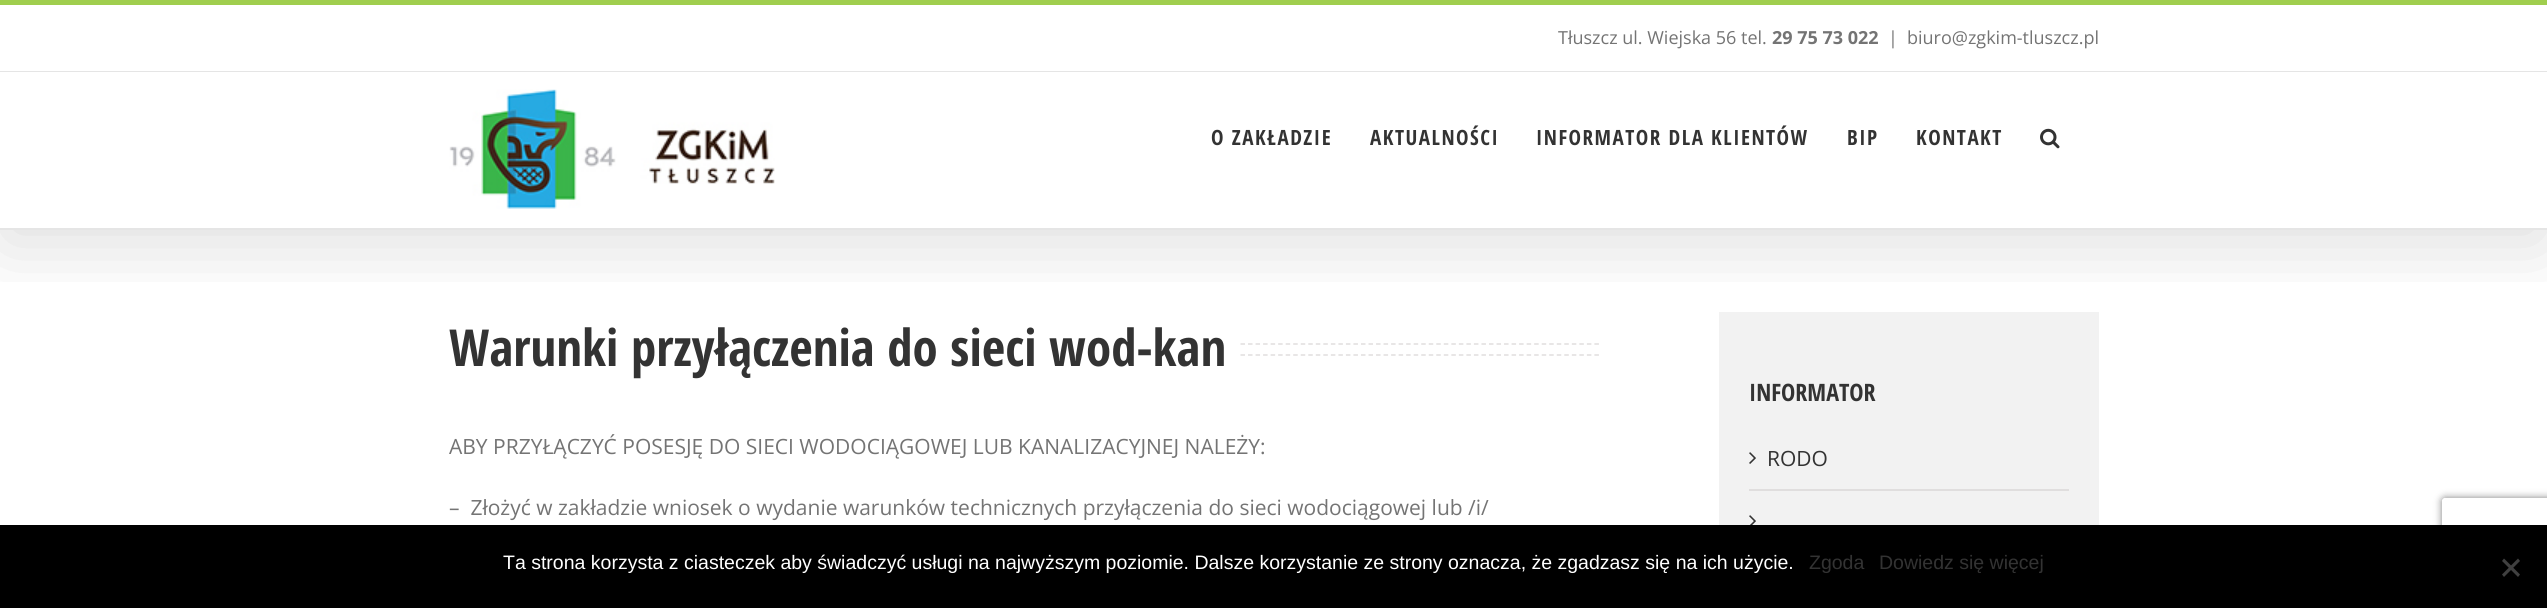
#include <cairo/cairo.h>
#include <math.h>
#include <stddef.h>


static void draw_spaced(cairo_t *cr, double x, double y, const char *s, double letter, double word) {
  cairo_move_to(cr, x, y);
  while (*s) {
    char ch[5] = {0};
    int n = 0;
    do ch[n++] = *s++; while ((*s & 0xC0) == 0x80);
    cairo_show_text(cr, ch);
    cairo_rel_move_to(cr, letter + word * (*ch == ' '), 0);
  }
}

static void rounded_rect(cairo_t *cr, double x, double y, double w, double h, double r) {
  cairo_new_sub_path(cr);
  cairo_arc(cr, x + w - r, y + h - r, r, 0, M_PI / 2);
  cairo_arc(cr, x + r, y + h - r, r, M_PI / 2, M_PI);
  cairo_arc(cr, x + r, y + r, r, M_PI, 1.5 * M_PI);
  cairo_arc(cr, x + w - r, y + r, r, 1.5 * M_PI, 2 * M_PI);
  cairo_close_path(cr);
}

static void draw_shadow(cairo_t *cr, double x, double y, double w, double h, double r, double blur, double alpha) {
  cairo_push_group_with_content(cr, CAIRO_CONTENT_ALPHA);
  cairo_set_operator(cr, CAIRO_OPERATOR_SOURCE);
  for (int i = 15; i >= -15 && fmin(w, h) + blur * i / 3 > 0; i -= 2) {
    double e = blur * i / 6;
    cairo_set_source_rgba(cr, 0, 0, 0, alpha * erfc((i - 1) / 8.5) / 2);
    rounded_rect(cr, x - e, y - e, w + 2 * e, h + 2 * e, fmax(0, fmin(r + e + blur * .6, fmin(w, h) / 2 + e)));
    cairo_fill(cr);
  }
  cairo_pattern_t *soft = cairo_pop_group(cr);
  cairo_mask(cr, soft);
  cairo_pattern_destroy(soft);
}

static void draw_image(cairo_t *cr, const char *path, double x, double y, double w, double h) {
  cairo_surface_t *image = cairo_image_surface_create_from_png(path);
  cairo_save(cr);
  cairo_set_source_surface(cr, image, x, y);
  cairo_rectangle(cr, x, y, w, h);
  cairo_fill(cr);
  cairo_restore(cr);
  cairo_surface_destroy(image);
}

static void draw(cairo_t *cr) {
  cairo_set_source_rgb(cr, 1, 1, 1);
  cairo_paint(cr);
  cairo_new_path(cr);
  cairo_move_to(cr, 1240.5, 344);
  cairo_line_to(cr, 1599, 344);
  cairo_set_source_rgb(cr, 224 / 255.0, 222 / 255.0, 222 / 255.0);
  cairo_set_line_width(cr, 1.5);
  cairo_set_dash(cr, (double[]){4.5, 3.03}, 2, 0);
  cairo_stroke(cr);
  cairo_new_path(cr);
  cairo_move_to(cr, 1240.5, 355);
  cairo_line_to(cr, 1599, 355);
  cairo_stroke(cr);
  cairo_set_source_rgb(cr, 242 / 255.0, 242 / 255.0, 242 / 255.0);
  cairo_rectangle(cr, 1719, 312, 380, 213);
  cairo_fill(cr);
  cairo_save(cr);
  cairo_rectangle(cr, 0, 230, 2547, 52);
  cairo_clip(cr);
  cairo_set_source_rgb(cr, 0, 0, 0);
  draw_shadow(cr, 3, 18, 2541, 224, 0, 37.5, 0.14);
  cairo_restore(cr);
  cairo_set_source_rgb(cr, 160 / 255.0, 206 / 255.0, 78 / 255.0);
  cairo_rectangle(cr, 0, 0, 2547, 5);
  cairo_fill(cr);
  cairo_set_source_rgb(cr, 229 / 255.0, 229 / 255.0, 229 / 255.0);
  cairo_rectangle(cr, 0, 71, 2547, 1);
  cairo_fill(cr);
  cairo_rectangle(cr, 0, 228, 2547, 2);
  cairo_fill(cr);
  draw_image(cr, "images/1.png", 449, 89, 326, 120);
  draw_image(cr, "images/2.png", 2040, 128, 20, 21);
  cairo_set_source_rgb(cr, 224 / 255.0, 222 / 255.0, 222 / 255.0);
  cairo_rectangle(cr, 1749, 489, 320, 2);
  cairo_fill(cr);
  draw_image(cr, "images/3.png", 1749, 452, 7, 12);
  draw_image(cr, "images/4.png", 1749, 515, 7, 10);
  cairo_save(cr);
  cairo_set_fill_rule(cr, CAIRO_FILL_RULE_EVEN_ODD);
  cairo_new_path(cr);
  cairo_move_to(cr, 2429, 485);
  cairo_line_to(cr, 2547, 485);
  cairo_line_to(cr, 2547, 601);
  cairo_line_to(cr, 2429, 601);
  cairo_close_path(cr);
  cairo_move_to(cr, 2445, 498);
  cairo_line_to(cr, 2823, 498);
  cairo_curve_to(cr, 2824.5, 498, 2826, 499.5, 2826, 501);
  cairo_line_to(cr, 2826, 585);
  cairo_curve_to(cr, 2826, 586.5, 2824.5, 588, 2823, 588);
  cairo_line_to(cr, 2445, 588);
  cairo_curve_to(cr, 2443.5, 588, 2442, 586.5, 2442, 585);
  cairo_line_to(cr, 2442, 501);
  cairo_curve_to(cr, 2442, 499.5, 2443.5, 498, 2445, 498);
  cairo_close_path(cr);
  cairo_clip(cr);
  cairo_set_source_rgb(cr, 128 / 255.0, 128 / 255.0, 128 / 255.0);
  draw_shadow(cr, 2442, 498, 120, 90, 3, 4, 1);
  cairo_restore(cr);
  cairo_set_source_rgb(cr, 0, 0, 0);
  cairo_rectangle(cr, 0, 525, 2547, 83);
  cairo_fill(cr);
  cairo_set_source_rgb(cr, 64 / 255.0, 64 / 255.0, 64 / 255.0);
  cairo_new_path(cr);
  cairo_move_to(cr, 2518, 558.5);
  cairo_line_to(cr, 2520, 561);
  cairo_line_to(cr, 2504, 577);
  cairo_line_to(cr, 2502, 574.5);
  cairo_close_path(cr);
  cairo_fill(cr);
  cairo_new_path(cr);
  cairo_move_to(cr, 2502, 561);
  cairo_line_to(cr, 2504, 558.5);
  cairo_line_to(cr, 2520, 574.5);
  cairo_line_to(cr, 2518, 577);
  cairo_close_path(cr);
  cairo_fill(cr);
  cairo_select_font_face(cr, "Open Sans", CAIRO_FONT_SLANT_NORMAL, CAIRO_FONT_WEIGHT_NORMAL);
  cairo_set_font_size(cr, 18);
  cairo_set_source_rgb(cr, 116 / 255.0, 116 / 255.0, 116 / 255.0);
  cairo_move_to(cr, 1558, 44);
  cairo_show_text(cr, "Tłuszcz ul. Wiejska 56 tel.");
  cairo_select_font_face(cr, "Open Sans", CAIRO_FONT_SLANT_NORMAL, CAIRO_FONT_WEIGHT_BOLD);
  cairo_move_to(cr, 1772, 44);
  cairo_show_text(cr, "29 75 73 022");
  cairo_select_font_face(cr, "Open Sans", CAIRO_FONT_SLANT_NORMAL, CAIRO_FONT_WEIGHT_NORMAL);
  cairo_move_to(cr, 1888, 44);
  cairo_show_text(cr, "|");
  cairo_move_to(cr, 1907, 44);
  cairo_show_text(cr, "biuro@zgkim-tluszcz.pl");
  cairo_select_font_face(cr, "Open Sans Condensed", CAIRO_FONT_SLANT_NORMAL, CAIRO_FONT_WEIGHT_BOLD);
  cairo_set_font_size(cr, 21);
  cairo_set_source_rgb(cr, 51 / 255.0, 51 / 255.0, 51 / 255.0);
  draw_spaced(cr, 1211, 145, "O ZAKŁADZIE", 1.5, 0);
  draw_spaced(cr, 1370, 145, "AKTUALNOŚCI", 1.5, 0);
  draw_spaced(cr, 1536, 145, "INFORMATOR DLA KLIENTÓW", 1.5, 0);
  draw_spaced(cr, 1847, 145, "BIP", 1.5, 0);
  draw_spaced(cr, 1916, 145, "KONTAKT", 1.5, 0);
  cairo_set_font_size(cr, 51);
  cairo_move_to(cr, 449, 366);
  cairo_show_text(cr, "Warunki przyłączenia do sieci wod-kan");
  cairo_select_font_face(cr, "Open Sans", CAIRO_FONT_SLANT_NORMAL, CAIRO_FONT_WEIGHT_NORMAL);
  cairo_set_font_size(cr, 21);
  cairo_set_source_rgb(cr, 116 / 255.0, 116 / 255.0, 116 / 255.0);
  cairo_move_to(cr, 449, 454);
  cairo_show_text(cr, "ABY PRZYŁĄCZYĆ POSESJĘ DO SIECI WODOCIĄGOWEJ LUB KANALIZACYJNEJ NALEŻY:");
  cairo_move_to(cr, 449, 515);
  cairo_show_text(cr, "–  Złożyć w zakładzie wniosek o wydanie warunków technicznych przyłączenia do sieci wodociągowej lub /i/");
  cairo_select_font_face(cr, "Open Sans Condensed", CAIRO_FONT_SLANT_NORMAL, CAIRO_FONT_WEIGHT_BOLD);
  cairo_set_font_size(cr, 24);
  cairo_set_source_rgb(cr, 51 / 255.0, 51 / 255.0, 51 / 255.0);
  cairo_move_to(cr, 1749, 401);
  cairo_show_text(cr, "INFORMATOR");
  cairo_select_font_face(cr, "Open Sans", CAIRO_FONT_SLANT_NORMAL, CAIRO_FONT_WEIGHT_NORMAL);
  cairo_set_font_size(cr, 21);
  cairo_move_to(cr, 1767, 466);
  cairo_show_text(cr, "RODO");
  cairo_select_font_face(cr, "Liberation Sans", CAIRO_FONT_SLANT_NORMAL, CAIRO_FONT_WEIGHT_NORMAL);
  cairo_set_font_size(cr, 19.5);
  cairo_set_source_rgb(cr, 1, 1, 1);
  cairo_move_to(cr, 503, 569);
  cairo_show_text(cr, "Ta strona korzysta z ciasteczek aby świadczyć usługi na najwyższym poziomie. Dalsze korzystanie ze strony oznacza, że zgadzasz się na ich użycie.");
  cairo_set_source_rgb(cr, 51 / 255.0, 51 / 255.0, 51 / 255.0);
  cairo_move_to(cr, 1809, 569);
  cairo_show_text(cr, "Zgoda");
  cairo_move_to(cr, 1879, 569);
  cairo_show_text(cr, "Dowiedz się więcej");
}

int main(void) {
  cairo_surface_t *surface = cairo_image_surface_create(CAIRO_FORMAT_RGB24, 2547, 608);
  cairo_t *cr = cairo_create(surface);
  cairo_font_options_t *options = cairo_font_options_create();
  cairo_font_options_set_hint_metrics(options, CAIRO_HINT_METRICS_OFF);
  cairo_font_options_set_hint_style(options, CAIRO_HINT_STYLE_NONE);
  cairo_set_font_options(cr, options);
  cairo_set_miter_limit(cr, 4);
  draw(cr);
  cairo_surface_write_to_png(surface, "out.png");
  cairo_font_options_destroy(options);
  cairo_destroy(cr);
  cairo_surface_destroy(surface);
  return 0;
}
